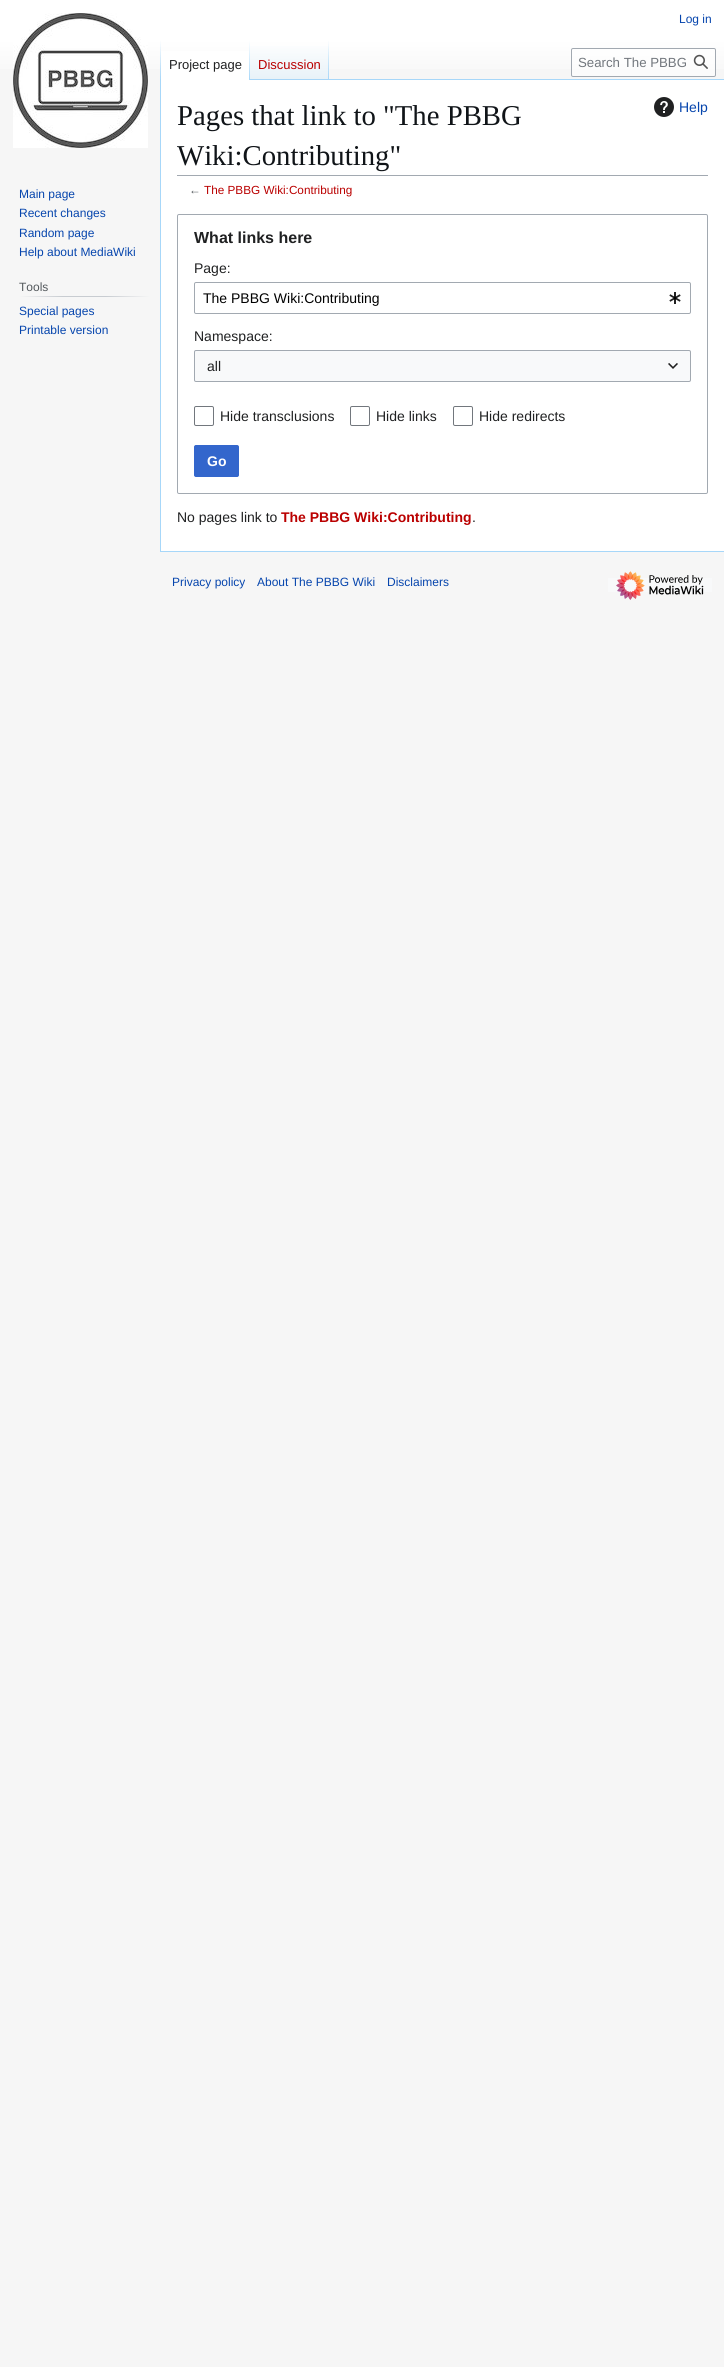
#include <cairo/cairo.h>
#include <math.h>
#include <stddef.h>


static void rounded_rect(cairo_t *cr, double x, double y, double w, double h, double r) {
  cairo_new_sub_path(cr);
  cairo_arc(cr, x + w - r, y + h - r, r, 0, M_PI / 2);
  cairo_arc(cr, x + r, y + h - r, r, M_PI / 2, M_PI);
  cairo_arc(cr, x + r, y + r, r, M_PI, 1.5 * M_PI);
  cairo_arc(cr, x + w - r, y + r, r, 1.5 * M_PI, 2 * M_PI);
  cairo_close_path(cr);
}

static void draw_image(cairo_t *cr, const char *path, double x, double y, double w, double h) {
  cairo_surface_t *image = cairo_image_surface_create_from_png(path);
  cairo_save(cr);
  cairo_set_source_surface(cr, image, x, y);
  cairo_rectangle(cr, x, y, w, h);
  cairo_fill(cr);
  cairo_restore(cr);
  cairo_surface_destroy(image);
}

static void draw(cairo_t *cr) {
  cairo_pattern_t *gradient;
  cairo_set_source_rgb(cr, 246 / 255.0, 246 / 255.0, 246 / 255.0);
  cairo_paint(cr);
  gradient = cairo_pattern_create_linear(362, 0, 362, 80);
  cairo_pattern_add_color_stop_rgba(gradient, 0.5, 1, 1, 1, 1);
  cairo_pattern_add_color_stop_rgba(gradient, 1, 246 / 255.0, 246 / 255.0, 246 / 255.0, 1);
  cairo_set_source(cr, gradient);
  cairo_pattern_destroy(gradient);
  cairo_rectangle(cr, 0, 0, 724, 69);
  cairo_fill(cr);
  cairo_set_source_rgb(cr, 167 / 255.0, 215 / 255.0, 249 / 255.0);
  cairo_rectangle(cr, 160, 551, 564, 1);
  cairo_fill(cr);
  cairo_rectangle(cr, 160, 79, 1, 473);
  cairo_fill(cr);
  gradient = cairo_pattern_create_linear(161, 40, 161, 80);
  cairo_pattern_add_color_stop_rgba(gradient, 0, 167 / 255.0, 215 / 255.0, 249 / 255.0, 0);
  cairo_pattern_add_color_stop_rgba(gradient, 1, 167 / 255.0, 215 / 255.0, 249 / 255.0, 1);
  cairo_set_source(cr, gradient);
  cairo_pattern_destroy(gradient);
  cairo_rectangle(cr, 160, 40, 1, 40);
  cairo_fill(cr);
  cairo_set_source_rgb(cr, 1, 1, 1);
  cairo_rectangle(cr, 161, 51, 88, 29);
  cairo_fill(cr);
  gradient = cairo_pattern_create_linear(250, 40, 250, 80);
  cairo_pattern_add_color_stop_rgba(gradient, 0, 1, 1, 1, 1);
  cairo_pattern_add_color_stop_rgba(gradient, 1, 167 / 255.0, 215 / 255.0, 249 / 255.0, 1);
  cairo_set_source(cr, gradient);
  cairo_pattern_destroy(gradient);
  cairo_rectangle(cr, 249, 40, 1, 40);
  cairo_fill(cr);
  gradient = cairo_pattern_create_linear(290, 80, 290, 40);
  cairo_pattern_add_color_stop_rgba(gradient, 0, 119 / 255.0, 193 / 255.0, 246 / 255.0, 1);
  cairo_pattern_add_color_stop_rgba(gradient, 0.03, 232 / 255.0, 242 / 255.0, 248 / 255.0, 1);
  cairo_pattern_add_color_stop_rgba(gradient, 1, 1, 1, 1, 1);
  cairo_set_source(cr, gradient);
  cairo_pattern_destroy(gradient);
  cairo_rectangle(cr, 250, 46, 79, 34);
  cairo_fill(cr);
  gradient = cairo_pattern_create_linear(329, 40, 329, 80);
  cairo_pattern_add_color_stop_rgba(gradient, 0, 167 / 255.0, 215 / 255.0, 249 / 255.0, 0);
  cairo_pattern_add_color_stop_rgba(gradient, 1, 167 / 255.0, 215 / 255.0, 249 / 255.0, 1);
  cairo_set_source(cr, gradient);
  cairo_pattern_destroy(gradient);
  cairo_rectangle(cr, 328, 40, 1, 40);
  cairo_fill(cr);
  cairo_set_source_rgba(cr, 1, 1, 1, 0.5);
  rounded_rect(cr, 571.5, 48.5, 144, 28, 1.5);
  cairo_fill_preserve(cr);
  cairo_set_source_rgb(cr, 162 / 255.0, 169 / 255.0, 177 / 255.0);
  cairo_set_line_width(cr, 1);
  cairo_stroke(cr);
  draw_image(cr, "images/1.png", 693, 54, 15, 15);
  draw_image(cr, "images/2.png", 13, 13, 135, 135);
  gradient = cairo_pattern_create_linear(19, 297, 150, 297);
  cairo_pattern_add_color_stop_rgba(gradient, 0, 246 / 255.0, 246 / 255.0, 246 / 255.0, 1);
  cairo_pattern_add_color_stop_rgba(gradient, 0.33, 200 / 255.0, 204 / 255.0, 209 / 255.0, 1);
  cairo_pattern_add_color_stop_rgba(gradient, 0.66, 200 / 255.0, 204 / 255.0, 209 / 255.0, 1);
  cairo_pattern_add_color_stop_rgba(gradient, 1, 246 / 255.0, 246 / 255.0, 246 / 255.0, 1);
  cairo_set_source(cr, gradient);
  cairo_pattern_destroy(gradient);
  cairo_rectangle(cr, 19, 296, 131, 1);
  cairo_fill(cr);
  cairo_set_source_rgb(cr, 1, 1, 1);
  cairo_rectangle(cr, 161, 80, 563, 471);
  cairo_fill(cr);
  cairo_set_source_rgb(cr, 167 / 255.0, 215 / 255.0, 249 / 255.0);
  cairo_rectangle(cr, 329, 79, 395, 1);
  cairo_fill(cr);
  cairo_set_source_rgb(cr, 162 / 255.0, 169 / 255.0, 177 / 255.0);
  cairo_rectangle(cr, 177, 175, 531, 1);
  cairo_fill(cr);
  draw_image(cr, "images/3.png", 654, 97, 20, 20);
  rounded_rect(cr, 177.5, 214.5, 530, 279, 1.5);
  cairo_stroke(cr);
  rounded_rect(cr, 194.5, 282.5, 496, 31, 1.5);
  cairo_stroke(cr);
  draw_image(cr, "images/4.png", 669, 292, 12, 12);
  cairo_set_source_rgb(cr, 248 / 255.0, 249 / 255.0, 250 / 255.0);
  cairo_rectangle(cr, 194, 350, 497, 32);
  cairo_fill(cr);
  rounded_rect(cr, 194.5, 350.5, 496, 31, 1.5);
  cairo_set_source_rgb(cr, 162 / 255.0, 169 / 255.0, 177 / 255.0);
  cairo_stroke(cr);
  draw_image(cr, "images/5.png", 668, 363, 10, 6);
  rounded_rect(cr, 194.5, 406.5, 19, 19, 1.5);
  cairo_set_source_rgb(cr, 114 / 255.0, 119 / 255.0, 125 / 255.0);
  cairo_stroke(cr);
  rounded_rect(cr, 350.5, 406.5, 19, 19, 1.5);
  cairo_stroke(cr);
  rounded_rect(cr, 453.5, 406.5, 19, 19, 1.5);
  cairo_stroke(cr);
  cairo_set_source_rgb(cr, 51 / 255.0, 102 / 255.0, 204 / 255.0);
  rounded_rect(cr, 194.5, 445.5, 44, 31, 1.5);
  cairo_fill_preserve(cr);
  cairo_stroke(cr);
  cairo_set_source_rgb(cr, 248 / 255.0, 249 / 255.0, 250 / 255.0);
  cairo_rectangle(cr, 608, 578, 104, 14);
  cairo_fill(cr);
  draw_image(cr, "images/6.png", 616, 571, 88, 29);
  cairo_select_font_face(cr, "Liberation Sans", CAIRO_FONT_SLANT_NORMAL, CAIRO_FONT_WEIGHT_NORMAL);
  cairo_set_font_size(cr, 12);
  cairo_set_source_rgb(cr, 6 / 255.0, 69 / 255.0, 173 / 255.0);
  cairo_move_to(cr, 679, 23);
  cairo_show_text(cr, "Log in");
  cairo_set_font_size(cr, 13);
  cairo_set_source_rgb(cr, 32 / 255.0, 33 / 255.0, 34 / 255.0);
  cairo_move_to(cr, 169, 69);
  cairo_show_text(cr, "Project page");
  cairo_set_source_rgb(cr, 186 / 255.0, 0, 0);
  cairo_move_to(cr, 258, 69);
  cairo_show_text(cr, "Discussion");
  cairo_save(cr);
  cairo_rectangle(cr, 578, 55, 108, 15);
  cairo_clip(cr);
  cairo_set_font_size(cr, 13.25);
  cairo_set_source_rgb(cr, 114 / 255.0, 119 / 255.0, 125 / 255.0);
  cairo_move_to(cr, 578, 67);
  cairo_show_text(cr, "Search The PBBG");
  cairo_restore(cr);
  cairo_set_font_size(cr, 12);
  cairo_set_source_rgb(cr, 6 / 255.0, 69 / 255.0, 173 / 255.0);
  cairo_move_to(cr, 19, 198);
  cairo_show_text(cr, "Main page");
  cairo_move_to(cr, 19, 217);
  cairo_show_text(cr, "Recent changes");
  cairo_move_to(cr, 19, 237);
  cairo_show_text(cr, "Random page");
  cairo_move_to(cr, 19, 256);
  cairo_show_text(cr, "Help about MediaWiki");
  cairo_set_source_rgb(cr, 84 / 255.0, 89 / 255.0, 93 / 255.0);
  cairo_move_to(cr, 19, 291);
  cairo_show_text(cr, "Tools");
  cairo_set_source_rgb(cr, 6 / 255.0, 69 / 255.0, 173 / 255.0);
  cairo_move_to(cr, 19, 315);
  cairo_show_text(cr, "Special pages");
  cairo_move_to(cr, 19, 334);
  cairo_show_text(cr, "Printable version");
  cairo_select_font_face(cr, "Liberation Serif", CAIRO_FONT_SLANT_NORMAL, CAIRO_FONT_WEIGHT_NORMAL);
  cairo_set_font_size(cr, 28.75);
  cairo_set_source_rgb(cr, 16 / 255.0, 20 / 255.0, 24 / 255.0);
  cairo_move_to(cr, 177, 125);
  cairo_show_text(cr, "Pages that link to \"The PBBG");
  cairo_move_to(cr, 177, 165);
  cairo_show_text(cr, "Wiki:Contributing\"");
  cairo_select_font_face(cr, "Liberation Sans", CAIRO_FONT_SLANT_NORMAL, CAIRO_FONT_WEIGHT_NORMAL);
  cairo_set_font_size(cr, 14);
  cairo_set_source_rgb(cr, 6 / 255.0, 69 / 255.0, 173 / 255.0);
  cairo_move_to(cr, 679, 112);
  cairo_show_text(cr, "Help");
  cairo_set_font_size(cr, 11.75);
  cairo_set_source_rgb(cr, 84 / 255.0, 89 / 255.0, 93 / 255.0);
  cairo_move_to(cr, 189, 194);
  cairo_show_text(cr, "←");
  cairo_set_source_rgb(cr, 186 / 255.0, 0, 0);
  cairo_move_to(cr, 204, 194);
  cairo_show_text(cr, "The PBBG Wiki:Contributing");
  cairo_select_font_face(cr, "Liberation Sans", CAIRO_FONT_SLANT_NORMAL, CAIRO_FONT_WEIGHT_BOLD);
  cairo_set_font_size(cr, 16);
  cairo_set_source_rgb(cr, 32 / 255.0, 33 / 255.0, 34 / 255.0);
  cairo_move_to(cr, 194, 243);
  cairo_show_text(cr, "What links here");
  cairo_select_font_face(cr, "Liberation Sans", CAIRO_FONT_SLANT_NORMAL, CAIRO_FONT_WEIGHT_NORMAL);
  cairo_set_font_size(cr, 14);
  cairo_move_to(cr, 194, 273);
  cairo_show_text(cr, "Page:");
  cairo_set_source_rgb(cr, 0, 0, 0);
  cairo_move_to(cr, 203, 303);
  cairo_show_text(cr, "The PBBG Wiki:Contributing");
  cairo_set_source_rgb(cr, 32 / 255.0, 33 / 255.0, 34 / 255.0);
  cairo_move_to(cr, 194, 341);
  cairo_show_text(cr, "Namespace:");
  cairo_move_to(cr, 207, 371);
  cairo_show_text(cr, "all");
  cairo_move_to(cr, 220, 421);
  cairo_show_text(cr, "Hide transclusions");
  cairo_move_to(cr, 376, 421);
  cairo_show_text(cr, "Hide links");
  cairo_move_to(cr, 479, 421);
  cairo_show_text(cr, "Hide redirects");
  cairo_select_font_face(cr, "Liberation Sans", CAIRO_FONT_SLANT_NORMAL, CAIRO_FONT_WEIGHT_BOLD);
  cairo_set_source_rgb(cr, 1, 1, 1);
  cairo_move_to(cr, 207, 466);
  cairo_show_text(cr, "Go");
  cairo_select_font_face(cr, "Liberation Sans", CAIRO_FONT_SLANT_NORMAL, CAIRO_FONT_WEIGHT_NORMAL);
  cairo_set_source_rgb(cr, 32 / 255.0, 33 / 255.0, 34 / 255.0);
  cairo_move_to(cr, 177, 522);
  cairo_show_text(cr, "No pages link to");
  cairo_select_font_face(cr, "Liberation Sans", CAIRO_FONT_SLANT_NORMAL, CAIRO_FONT_WEIGHT_BOLD);
  cairo_set_source_rgb(cr, 186 / 255.0, 0, 0);
  cairo_move_to(cr, 281, 522);
  cairo_show_text(cr, "The PBBG Wiki:Contributing");
  cairo_select_font_face(cr, "Liberation Sans", CAIRO_FONT_SLANT_NORMAL, CAIRO_FONT_WEIGHT_NORMAL);
  cairo_set_source_rgb(cr, 32 / 255.0, 33 / 255.0, 34 / 255.0);
  cairo_move_to(cr, 472, 522);
  cairo_show_text(cr, ".");
  cairo_set_font_size(cr, 12);
  cairo_set_source_rgb(cr, 6 / 255.0, 69 / 255.0, 173 / 255.0);
  cairo_move_to(cr, 172, 586);
  cairo_show_text(cr, "Privacy policy");
  cairo_move_to(cr, 257, 586);
  cairo_show_text(cr, "About The PBBG Wiki");
  cairo_move_to(cr, 387, 586);
  cairo_show_text(cr, "Disclaimers");
}

int main(void) {
  cairo_surface_t *surface = cairo_image_surface_create(CAIRO_FORMAT_RGB24, 724, 2367);
  cairo_t *cr = cairo_create(surface);
  cairo_font_options_t *options = cairo_font_options_create();
  cairo_font_options_set_hint_metrics(options, CAIRO_HINT_METRICS_OFF);
  cairo_font_options_set_hint_style(options, CAIRO_HINT_STYLE_NONE);
  cairo_set_font_options(cr, options);
  cairo_set_miter_limit(cr, 4);
  draw(cr);
  cairo_surface_write_to_png(surface, "out.png");
  cairo_font_options_destroy(options);
  cairo_destroy(cr);
  cairo_surface_destroy(surface);
  return 0;
}
